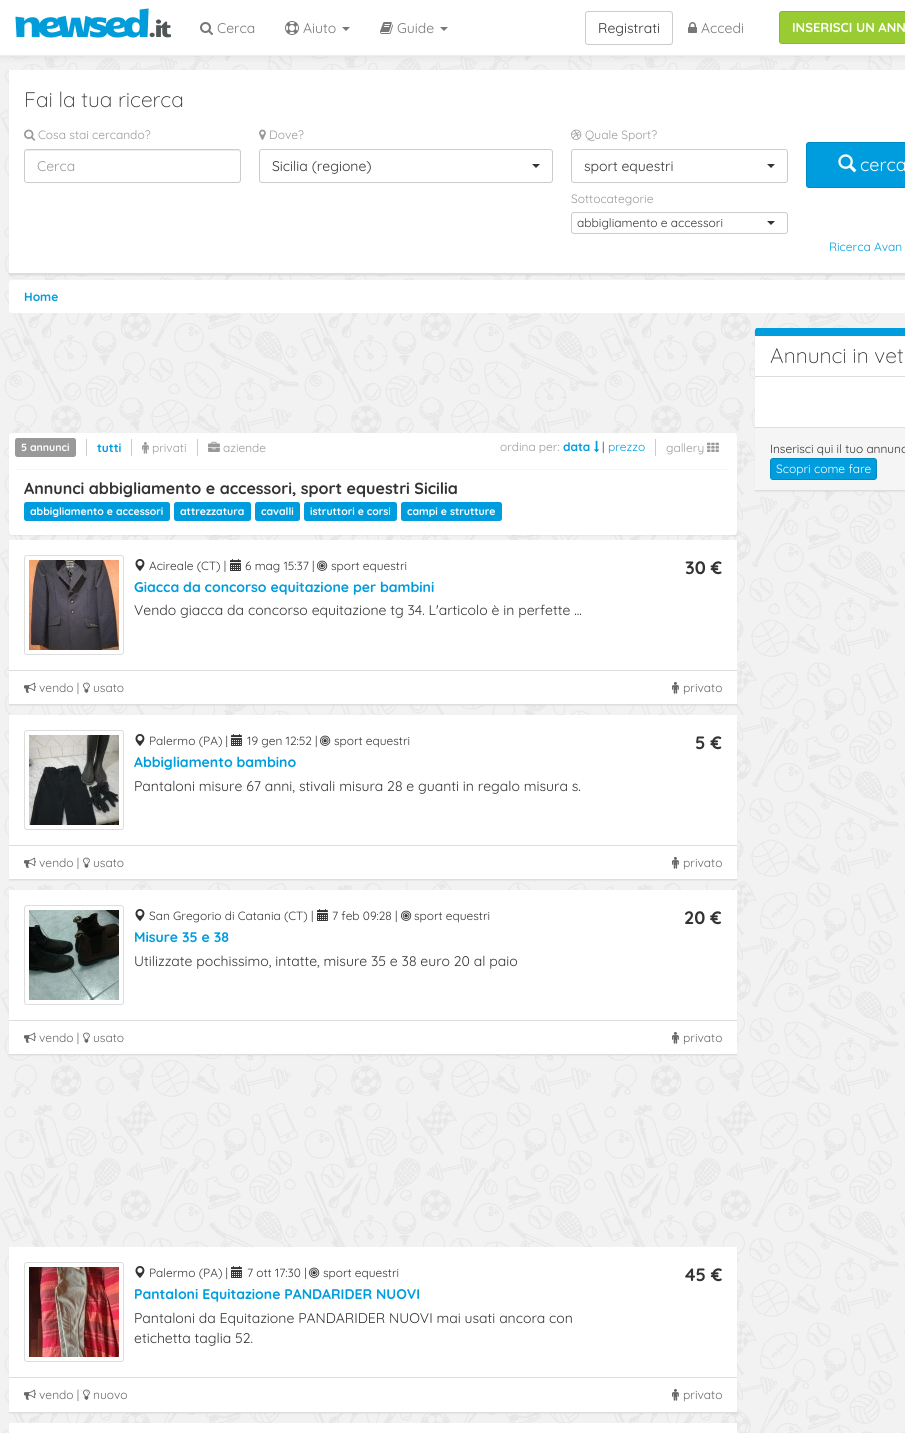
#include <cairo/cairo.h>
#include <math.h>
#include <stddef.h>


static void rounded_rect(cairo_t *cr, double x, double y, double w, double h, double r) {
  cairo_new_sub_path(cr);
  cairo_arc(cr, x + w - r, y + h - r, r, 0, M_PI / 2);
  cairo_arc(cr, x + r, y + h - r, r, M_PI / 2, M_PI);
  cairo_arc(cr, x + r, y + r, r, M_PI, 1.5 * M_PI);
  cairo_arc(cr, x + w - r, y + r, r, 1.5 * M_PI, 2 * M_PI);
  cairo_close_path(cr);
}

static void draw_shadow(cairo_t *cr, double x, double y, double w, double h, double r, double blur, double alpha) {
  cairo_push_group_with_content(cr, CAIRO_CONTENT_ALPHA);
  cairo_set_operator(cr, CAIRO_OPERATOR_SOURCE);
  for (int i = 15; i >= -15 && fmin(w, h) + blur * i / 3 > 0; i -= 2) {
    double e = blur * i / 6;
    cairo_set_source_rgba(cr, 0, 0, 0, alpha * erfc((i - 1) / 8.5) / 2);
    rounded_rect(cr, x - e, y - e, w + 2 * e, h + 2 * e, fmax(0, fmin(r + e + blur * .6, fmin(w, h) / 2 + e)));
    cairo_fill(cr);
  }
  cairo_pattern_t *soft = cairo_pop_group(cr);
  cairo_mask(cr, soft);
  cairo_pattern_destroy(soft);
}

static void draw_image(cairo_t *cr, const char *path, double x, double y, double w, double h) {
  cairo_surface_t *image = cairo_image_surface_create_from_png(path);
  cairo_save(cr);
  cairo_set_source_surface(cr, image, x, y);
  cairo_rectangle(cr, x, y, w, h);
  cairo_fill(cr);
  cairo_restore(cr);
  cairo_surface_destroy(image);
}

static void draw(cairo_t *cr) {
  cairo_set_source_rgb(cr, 1, 1, 1);
  cairo_paint(cr);
  draw_image(cr, "images/1.png", 0, 56, 905, 1377);
  cairo_set_source_rgb(cr, 0, 0, 0);
  draw_shadow(cr, 0, 0, 905, 56, 0, 4, 0.1);
  cairo_set_source_rgb(cr, 1, 1, 1);
  cairo_rectangle(cr, 0, 0, 905, 55);
  cairo_fill(cr);
  cairo_set_source_rgb(cr, 238 / 255.0, 238 / 255.0, 238 / 255.0);
  cairo_rectangle(cr, 0, 55, 905, 1);
  cairo_fill(cr);
  draw_image(cr, "images/2.png", 15, 8, 156, 30);
  draw_image(cr, "images/3.png", 200, 22, 13, 13);
  draw_image(cr, "images/4.png", 285, 21, 14, 14);
  cairo_set_source_rgb(cr, 119 / 255.0, 119 / 255.0, 119 / 255.0);
  cairo_new_path(cr);
  cairo_move_to(cr, 342, 27);
  cairo_line_to(cr, 350, 27);
  cairo_line_to(cr, 346, 31);
  cairo_close_path(cr);
  cairo_fill(cr);
  draw_image(cr, "images/5.png", 380, 22, 13, 12);
  cairo_new_path(cr);
  cairo_move_to(cr, 440, 27);
  cairo_line_to(cr, 448, 27);
  cairo_line_to(cr, 444, 31);
  cairo_close_path(cr);
  cairo_fill(cr);
  rounded_rect(cr, 585.5, 11.5, 87, 33, 2.5);
  cairo_set_source_rgb(cr, 204 / 255.0, 204 / 255.0, 204 / 255.0);
  cairo_set_line_width(cr, 1);
  cairo_stroke(cr);
  draw_image(cr, "images/6.png", 688, 22, 9, 11);
  cairo_set_source_rgb(cr, 153 / 255.0, 204 / 255.0, 51 / 255.0);
  rounded_rect(cr, 779.5, 11.5, 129, 32, 2.5);
  cairo_fill_preserve(cr);
  cairo_set_source_rgb(cr, 138 / 255.0, 184 / 255.0, 46 / 255.0);
  cairo_stroke(cr);
  cairo_set_source_rgb(cr, 0, 0, 0);
  draw_shadow(cr, 9, 71, 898, 205, 0, 0.5, 0.05);
  cairo_set_source_rgb(cr, 1, 1, 1);
  cairo_rectangle(cr, 9, 70, 896, 203);
  cairo_fill(cr);
  cairo_set_source_rgb(cr, 221 / 255.0, 221 / 255.0, 221 / 255.0);
  cairo_rectangle(cr, 9, 273, 896, 2);
  cairo_fill(cr);
  draw_image(cr, "images/7.png", 24, 129, 12, 12);
  cairo_set_source_rgb(cr, 236 / 255.0, 236 / 255.0, 236 / 255.0);
  cairo_new_path(cr);
  cairo_move_to(cr, 27, 151);
  cairo_line_to(cr, 238, 151);
  cairo_curve_to(cr, 239, 151, 240, 152, 240, 153);
  cairo_curve_to(cr, 240, 152, 240, 150, 238, 150);
  cairo_line_to(cr, 27, 150);
  cairo_line_to(cr, 26, 151);
  cairo_line_to(cr, 25, 153);
  cairo_curve_to(cr, 25, 152, 26, 151, 27, 151);
  cairo_close_path(cr);
  cairo_fill(cr);
  rounded_rect(cr, 24.5, 149.5, 216, 33, 2.5);
  cairo_set_source_rgb(cr, 204 / 255.0, 204 / 255.0, 204 / 255.0);
  cairo_stroke(cr);
  draw_image(cr, "images/8.png", 259, 129, 7, 11);
  rounded_rect(cr, 259.5, 149.5, 293, 33, 2.5);
  cairo_stroke(cr);
  cairo_set_source_rgb(cr, 51 / 255.0, 51 / 255.0, 51 / 255.0);
  cairo_new_path(cr);
  cairo_move_to(cr, 532, 164);
  cairo_line_to(cr, 540, 164);
  cairo_line_to(cr, 536, 168);
  cairo_close_path(cr);
  cairo_fill(cr);
  draw_image(cr, "images/9.png", 571, 129, 11, 11);
  rounded_rect(cr, 571.5, 149.5, 216, 33, 2.5);
  cairo_set_source_rgb(cr, 204 / 255.0, 204 / 255.0, 204 / 255.0);
  cairo_stroke(cr);
  cairo_set_source_rgb(cr, 51 / 255.0, 51 / 255.0, 51 / 255.0);
  cairo_new_path(cr);
  cairo_move_to(cr, 767, 164);
  cairo_line_to(cr, 775, 164);
  cairo_line_to(cr, 771, 168);
  cairo_close_path(cr);
  cairo_fill(cr);
  rounded_rect(cr, 571.5, 212.5, 216, 21, 2.5);
  cairo_set_source_rgb(cr, 204 / 255.0, 204 / 255.0, 204 / 255.0);
  cairo_stroke(cr);
  cairo_set_source_rgb(cr, 51 / 255.0, 51 / 255.0, 51 / 255.0);
  cairo_new_path(cr);
  cairo_move_to(cr, 767, 221);
  cairo_line_to(cr, 775, 221);
  cairo_line_to(cr, 771, 225);
  cairo_close_path(cr);
  cairo_fill(cr);
  cairo_set_source_rgb(cr, 0, 157 / 255.0, 222 / 255.0);
  rounded_rect(cr, 806.5, 142.5, 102, 45, 2.5);
  cairo_fill_preserve(cr);
  cairo_set_source_rgb(cr, 0, 139 / 255.0, 197 / 255.0);
  cairo_stroke(cr);
  draw_image(cr, "images/10.png", 838, 154, 19, 19);
  cairo_set_source_rgb(cr, 1, 1, 1);
  rounded_rect(cr, 9, 280, 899, 33, 3);
  cairo_fill(cr);
  cairo_set_source_rgb(cr, 0, 0, 0);
  draw_shadow(cr, 755, 329, 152, 163, 0, 0.5, 0.05);
  cairo_set_source_rgb(cr, 1, 1, 1);
  cairo_rectangle(cr, 755, 328, 150, 162);
  cairo_fill(cr);
  cairo_set_source_rgb(cr, 221 / 255.0, 221 / 255.0, 221 / 255.0);
  cairo_rectangle(cr, 755, 490, 150, 1);
  cairo_fill(cr);
  cairo_set_source_rgb(cr, 0, 157 / 255.0, 222 / 255.0);
  cairo_new_path(cr);
  cairo_move_to(cr, 757, 328);
  cairo_curve_to(cr, 754, 328, 755, 334, 755, 336);
  cairo_line_to(cr, 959, 336);
  cairo_curve_to(cr, 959, 334, 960, 328, 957, 328);
  cairo_close_path(cr);
  cairo_fill(cr);
  cairo_set_source_rgb(cr, 221 / 255.0, 221 / 255.0, 221 / 255.0);
  cairo_rectangle(cr, 755, 376, 150, 1);
  cairo_fill(cr);
  cairo_set_source_rgb(cr, 245 / 255.0, 245 / 255.0, 245 / 255.0);
  cairo_new_path(cr);
  cairo_move_to(cr, 755, 427);
  cairo_line_to(cr, 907, 427);
  cairo_line_to(cr, 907, 488);
  cairo_curve_to(cr, 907, 489, 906, 490, 905, 490);
  cairo_line_to(cr, 757, 490);
  cairo_curve_to(cr, 756, 490, 755, 489, 755, 488);
  cairo_close_path(cr);
  cairo_fill(cr);
  cairo_set_source_rgb(cr, 221 / 255.0, 221 / 255.0, 221 / 255.0);
  cairo_rectangle(cr, 755, 427, 150, 1);
  cairo_fill(cr);
  cairo_set_source_rgb(cr, 0, 157 / 255.0, 222 / 255.0);
  rounded_rect(cr, 770.5, 458.5, 106, 21, 2.5);
  cairo_fill_preserve(cr);
  cairo_set_source_rgb(cr, 0, 139 / 255.0, 197 / 255.0);
  cairo_stroke(cr);
  cairo_set_source_rgb(cr, 0, 0, 0);
  draw_shadow(cr, 9, 434, 728, 102, 3, 0.5, 0.05);
  cairo_set_source_rgb(cr, 1, 1, 1);
  rounded_rect(cr, 9, 433, 728, 102, 3);
  cairo_fill(cr);
  cairo_set_source_rgb(cr, 153 / 255.0, 153 / 255.0, 153 / 255.0);
  rounded_rect(cr, 15, 438, 61, 19, 2.5);
  cairo_fill(cr);
  cairo_set_source_rgb(cr, 204 / 255.0, 204 / 255.0, 204 / 255.0);
  cairo_rectangle(cr, 86, 439, 1, 17);
  cairo_fill(cr);
  cairo_rectangle(cr, 131, 439, 1, 17);
  cairo_fill(cr);
  draw_image(cr, "images/11.png", 142, 442, 7, 12);
  cairo_rectangle(cr, 197, 439, 1, 17);
  cairo_fill(cr);
  draw_image(cr, "images/12.png", 208, 441, 12, 11);
  draw_image(cr, "images/13.png", 594, 440, 5, 13);
  cairo_rectangle(cr, 655, 439, 1, 17);
  cairo_fill(cr);
  draw_image(cr, "images/14.png", 707, 442, 12, 10);
  cairo_set_source_rgb(cr, 245 / 255.0, 245 / 255.0, 245 / 255.0);
  cairo_rectangle(cr, 15, 469, 714, 1);
  cairo_fill(cr);
  cairo_set_source_rgb(cr, 0, 157 / 255.0, 222 / 255.0);
  rounded_rect(cr, 24, 502, 146, 19, 2.5);
  cairo_fill(cr);
  rounded_rect(cr, 174, 502, 77, 19, 2.5);
  cairo_fill(cr);
  rounded_rect(cr, 255, 502, 45, 19, 2.5);
  cairo_fill(cr);
  rounded_rect(cr, 304, 502, 93, 19, 2.5);
  cairo_fill(cr);
  rounded_rect(cr, 401, 502, 101, 19, 2.5);
  cairo_fill(cr);
  cairo_set_source_rgb(cr, 0, 0, 0);
  draw_shadow(cr, 9, 541, 728, 165, 0, 0.5, 0.05);
  cairo_set_source_rgb(cr, 1, 1, 1);
  cairo_rectangle(cr, 9, 540, 728, 164);
  cairo_fill(cr);
  cairo_set_source_rgb(cr, 221 / 255.0, 221 / 255.0, 221 / 255.0);
  cairo_rectangle(cr, 9, 704, 728, 1);
  cairo_fill(cr);
  rounded_rect(cr, 24.5, 555.5, 99, 99, 2.5);
  cairo_stroke(cr);
  draw_image(cr, "images/15.png", 29, 560, 90, 90);
  draw_image(cr, "images/16.png", 135, 559, 10, 12);
  draw_image(cr, "images/17.png", 230, 559, 11, 12);
  draw_image(cr, "images/18.png", 317, 560, 11, 11);
  cairo_rectangle(cr, 9, 670, 728, 1);
  cairo_fill(cr);
  draw_image(cr, "images/19.png", 24, 682, 12, 11);
  draw_image(cr, "images/20.png", 83, 682, 7, 11);
  draw_image(cr, "images/21.png", 672, 681, 7, 13);
  cairo_set_source_rgb(cr, 0, 0, 0);
  draw_shadow(cr, 9, 716, 728, 165, 0, 0.5, 0.05);
  cairo_set_source_rgb(cr, 1, 1, 1);
  cairo_rectangle(cr, 9, 715, 728, 164);
  cairo_fill(cr);
  cairo_set_source_rgb(cr, 221 / 255.0, 221 / 255.0, 221 / 255.0);
  cairo_rectangle(cr, 9, 879, 728, 1);
  cairo_fill(cr);
  rounded_rect(cr, 24.5, 730.5, 99, 99, 2.5);
  cairo_stroke(cr);
  draw_image(cr, "images/22.png", 29, 735, 90, 90);
  draw_image(cr, "images/16.png", 135, 734, 10, 12);
  draw_image(cr, "images/17.png", 231, 734, 11, 12);
  draw_image(cr, "images/18.png", 320, 735, 11, 11);
  cairo_rectangle(cr, 9, 845, 728, 1);
  cairo_fill(cr);
  draw_image(cr, "images/19.png", 24, 857, 12, 11);
  draw_image(cr, "images/20.png", 83, 857, 7, 11);
  draw_image(cr, "images/21.png", 672, 856, 7, 13);
  cairo_set_source_rgb(cr, 0, 0, 0);
  draw_shadow(cr, 9, 891, 728, 165, 0, 0.5, 0.05);
  cairo_set_source_rgb(cr, 1, 1, 1);
  cairo_rectangle(cr, 9, 890, 728, 164);
  cairo_fill(cr);
  cairo_set_source_rgb(cr, 221 / 255.0, 221 / 255.0, 221 / 255.0);
  cairo_rectangle(cr, 9, 1054, 728, 1);
  cairo_fill(cr);
  rounded_rect(cr, 24.5, 905.5, 99, 99, 2.5);
  cairo_stroke(cr);
  draw_image(cr, "images/23.png", 29, 910, 90, 90);
  draw_image(cr, "images/16.png", 135, 909, 10, 12);
  draw_image(cr, "images/17.png", 317, 909, 11, 12);
  draw_image(cr, "images/18.png", 401, 910, 11, 11);
  cairo_rectangle(cr, 9, 1020, 728, 1);
  cairo_fill(cr);
  draw_image(cr, "images/19.png", 24, 1032, 12, 11);
  draw_image(cr, "images/20.png", 83, 1032, 7, 11);
  draw_image(cr, "images/21.png", 672, 1031, 7, 13);
  cairo_set_source_rgb(cr, 0, 0, 0);
  draw_shadow(cr, 9, 1248, 728, 166, 0, 0.5, 0.05);
  cairo_set_source_rgb(cr, 1, 1, 1);
  cairo_rectangle(cr, 9, 1247, 728, 165);
  cairo_fill(cr);
  cairo_set_source_rgb(cr, 221 / 255.0, 221 / 255.0, 221 / 255.0);
  cairo_rectangle(cr, 9, 1412, 728, 1);
  cairo_fill(cr);
  rounded_rect(cr, 24.5, 1262.5, 99, 99, 2.5);
  cairo_stroke(cr);
  draw_image(cr, "images/24.png", 29, 1267, 90, 90);
  draw_image(cr, "images/16.png", 135, 1266, 10, 12);
  draw_image(cr, "images/17.png", 231, 1266, 11, 12);
  draw_image(cr, "images/18.png", 309, 1267, 11, 11);
  cairo_rectangle(cr, 9, 1377, 728, 1);
  cairo_fill(cr);
  draw_image(cr, "images/19.png", 24, 1389, 12, 11);
  draw_image(cr, "images/20.png", 83, 1389, 7, 11);
  draw_image(cr, "images/21.png", 672, 1388, 7, 13);
  cairo_set_source_rgb(cr, 1, 1, 1);
  cairo_rectangle(cr, 9, 1423, 728, 10);
  cairo_fill(cr);
  cairo_select_font_face(cr, "Quicksand", CAIRO_FONT_SLANT_NORMAL, CAIRO_FONT_WEIGHT_NORMAL);
  cairo_set_font_size(cr, 14);
  cairo_set_source_rgb(cr, 119 / 255.0, 119 / 255.0, 119 / 255.0);
  cairo_move_to(cr, 217, 33);
  cairo_show_text(cr, "Cerca");
  cairo_move_to(cr, 303, 33);
  cairo_show_text(cr, "Aiuto");
  cairo_move_to(cr, 397, 33);
  cairo_show_text(cr, "Guide");
  cairo_set_source_rgb(cr, 51 / 255.0, 51 / 255.0, 51 / 255.0);
  cairo_move_to(cr, 598, 33);
  cairo_show_text(cr, "Registrati");
  cairo_set_source_rgb(cr, 119 / 255.0, 119 / 255.0, 119 / 255.0);
  cairo_move_to(cr, 701, 33);
  cairo_show_text(cr, "Accedi");
  cairo_select_font_face(cr, "Quicksand", CAIRO_FONT_SLANT_NORMAL, CAIRO_FONT_WEIGHT_BOLD);
  cairo_set_font_size(cr, 13);
  cairo_set_source_rgb(cr, 1, 1, 1);
  cairo_move_to(cr, 792, 32);
  cairo_show_text(cr, "INSERISCI UN ANN");
  cairo_select_font_face(cr, "Quicksand Light", CAIRO_FONT_SLANT_NORMAL, CAIRO_FONT_WEIGHT_NORMAL);
  cairo_set_font_size(cr, 21);
  cairo_set_source_rgb(cr, 51 / 255.0, 51 / 255.0, 51 / 255.0);
  cairo_move_to(cr, 24, 107);
  cairo_show_text(cr, "Fai la tua ricerca");
  cairo_select_font_face(cr, "Quicksand", CAIRO_FONT_SLANT_NORMAL, CAIRO_FONT_WEIGHT_NORMAL);
  cairo_set_font_size(cr, 12);
  cairo_set_source_rgb(cr, 153 / 255.0, 153 / 255.0, 153 / 255.0);
  cairo_move_to(cr, 38, 139);
  cairo_show_text(cr, "Cosa stai cercando?");
  cairo_set_font_size(cr, 14);
  cairo_move_to(cr, 37, 171);
  cairo_show_text(cr, "Cerca");
  cairo_set_font_size(cr, 12);
  cairo_move_to(cr, 269, 139);
  cairo_show_text(cr, "Dove?");
  cairo_set_font_size(cr, 14);
  cairo_set_source_rgb(cr, 51 / 255.0, 51 / 255.0, 51 / 255.0);
  cairo_move_to(cr, 272, 171);
  cairo_show_text(cr, "Sicilia (regione)");
  cairo_set_font_size(cr, 12);
  cairo_set_source_rgb(cr, 153 / 255.0, 153 / 255.0, 153 / 255.0);
  cairo_move_to(cr, 585, 139);
  cairo_show_text(cr, "Quale Sport?");
  cairo_set_font_size(cr, 14);
  cairo_set_source_rgb(cr, 51 / 255.0, 51 / 255.0, 51 / 255.0);
  cairo_move_to(cr, 584, 171);
  cairo_show_text(cr, "sport equestri");
  cairo_set_font_size(cr, 12);
  cairo_set_source_rgb(cr, 153 / 255.0, 153 / 255.0, 153 / 255.0);
  cairo_move_to(cr, 571, 203);
  cairo_show_text(cr, "Sottocategorie");
  cairo_set_source_rgb(cr, 51 / 255.0, 51 / 255.0, 51 / 255.0);
  cairo_move_to(cr, 577, 227);
  cairo_show_text(cr, "abbigliamento e accessori");
  cairo_set_font_size(cr, 18);
  cairo_set_source_rgb(cr, 1, 1, 1);
  cairo_move_to(cr, 860, 171);
  cairo_show_text(cr, "cerca");
  cairo_set_font_size(cr, 12);
  cairo_set_source_rgb(cr, 0, 157 / 255.0, 222 / 255.0);
  cairo_move_to(cr, 829, 251);
  cairo_show_text(cr, "Ricerca Avan");
  cairo_select_font_face(cr, "Quicksand", CAIRO_FONT_SLANT_NORMAL, CAIRO_FONT_WEIGHT_BOLD);
  cairo_move_to(cr, 24, 301);
  cairo_show_text(cr, "Home");
  cairo_select_font_face(cr, "Quicksand Light", CAIRO_FONT_SLANT_NORMAL, CAIRO_FONT_WEIGHT_NORMAL);
  cairo_set_font_size(cr, 21);
  cairo_set_source_rgb(cr, 51 / 255.0, 51 / 255.0, 51 / 255.0);
  cairo_move_to(cr, 770, 363);
  cairo_show_text(cr, "Annunci in vet");
  cairo_select_font_face(cr, "Quicksand", CAIRO_FONT_SLANT_NORMAL, CAIRO_FONT_WEIGHT_NORMAL);
  cairo_set_font_size(cr, 11.9);
  cairo_move_to(cr, 770, 453);
  cairo_show_text(cr, "Inserisci qui il tuo annunc");
  cairo_set_font_size(cr, 12);
  cairo_set_source_rgb(cr, 1, 1, 1);
  cairo_move_to(cr, 776, 473);
  cairo_show_text(cr, "Scopri come fare");
  cairo_select_font_face(cr, "Quicksand", CAIRO_FONT_SLANT_NORMAL, CAIRO_FONT_WEIGHT_BOLD);
  cairo_set_font_size(cr, 10.5);
  cairo_move_to(cr, 21, 451);
  cairo_show_text(cr, "5 annunci");
  cairo_set_font_size(cr, 11.9);
  cairo_set_source_rgb(cr, 0, 157 / 255.0, 222 / 255.0);
  cairo_move_to(cr, 97, 452);
  cairo_show_text(cr, "tutti");
  cairo_select_font_face(cr, "Quicksand", CAIRO_FONT_SLANT_NORMAL, CAIRO_FONT_WEIGHT_NORMAL);
  cairo_set_source_rgb(cr, 153 / 255.0, 153 / 255.0, 153 / 255.0);
  cairo_move_to(cr, 152, 452);
  cairo_show_text(cr, "privati");
  cairo_move_to(cr, 223, 452);
  cairo_show_text(cr, "aziende");
  cairo_move_to(cr, 500, 451);
  cairo_show_text(cr, "ordina per:");
  cairo_select_font_face(cr, "Quicksand", CAIRO_FONT_SLANT_NORMAL, CAIRO_FONT_WEIGHT_BOLD);
  cairo_set_source_rgb(cr, 0, 157 / 255.0, 222 / 255.0);
  cairo_move_to(cr, 563, 451);
  cairo_show_text(cr, "data");
  cairo_select_font_face(cr, "Quicksand", CAIRO_FONT_SLANT_NORMAL, CAIRO_FONT_WEIGHT_NORMAL);
  cairo_set_source_rgb(cr, 51 / 255.0, 51 / 255.0, 51 / 255.0);
  cairo_move_to(cr, 602, 451);
  cairo_show_text(cr, "|");
  cairo_set_source_rgb(cr, 0, 157 / 255.0, 222 / 255.0);
  cairo_move_to(cr, 608, 451);
  cairo_show_text(cr, "prezzo");
  cairo_set_source_rgb(cr, 153 / 255.0, 153 / 255.0, 153 / 255.0);
  cairo_move_to(cr, 666, 452);
  cairo_show_text(cr, "gallery");
  cairo_select_font_face(cr, "Quicksand", CAIRO_FONT_SLANT_NORMAL, CAIRO_FONT_WEIGHT_BOLD);
  cairo_set_font_size(cr, 16);
  cairo_set_source_rgb(cr, 51 / 255.0, 51 / 255.0, 51 / 255.0);
  cairo_move_to(cr, 24, 494);
  cairo_show_text(cr, "Annunci abbigliamento e accessori, sport equestri Sicilia");
  cairo_set_font_size(cr, 10.5);
  cairo_set_source_rgb(cr, 1, 1, 1);
  cairo_move_to(cr, 30, 515);
  cairo_show_text(cr, "abbigliamento e accessori");
  cairo_move_to(cr, 180, 515);
  cairo_show_text(cr, "attrezzatura");
  cairo_move_to(cr, 261, 515);
  cairo_show_text(cr, "cavalli");
  cairo_move_to(cr, 310, 515);
  cairo_show_text(cr, "istruttori e corsi");
  cairo_move_to(cr, 407, 515);
  cairo_show_text(cr, "campi e strutture");
  cairo_select_font_face(cr, "Quicksand", CAIRO_FONT_SLANT_NORMAL, CAIRO_FONT_WEIGHT_NORMAL);
  cairo_set_font_size(cr, 11.9);
  cairo_set_source_rgb(cr, 51 / 255.0, 51 / 255.0, 51 / 255.0);
  cairo_move_to(cr, 149, 570);
  cairo_show_text(cr, "Acireale (CT) |");
  cairo_move_to(cr, 245, 570);
  cairo_show_text(cr, "6 mag 15:37 |");
  cairo_move_to(cr, 331, 570);
  cairo_show_text(cr, "sport equestri");
  cairo_select_font_face(cr, "Quicksand", CAIRO_FONT_SLANT_NORMAL, CAIRO_FONT_WEIGHT_BOLD);
  cairo_set_font_size(cr, 14);
  cairo_set_source_rgb(cr, 0, 157 / 255.0, 222 / 255.0);
  cairo_move_to(cr, 134, 592);
  cairo_show_text(cr, "Giacca da concorso equitazione per bambini");
  cairo_select_font_face(cr, "Quicksand", CAIRO_FONT_SLANT_NORMAL, CAIRO_FONT_WEIGHT_NORMAL);
  cairo_set_source_rgb(cr, 51 / 255.0, 51 / 255.0, 51 / 255.0);
  cairo_move_to(cr, 134, 615);
  cairo_show_text(cr, "Vendo giacca da concorso equitazione tg 34. L'articolo è in perfette ...");
  cairo_select_font_face(cr, "Quicksand", CAIRO_FONT_SLANT_NORMAL, CAIRO_FONT_WEIGHT_BOLD);
  cairo_set_font_size(cr, 18);
  cairo_move_to(cr, 685, 574);
  cairo_show_text(cr, "30 €");
  cairo_select_font_face(cr, "Quicksand", CAIRO_FONT_SLANT_NORMAL, CAIRO_FONT_WEIGHT_NORMAL);
  cairo_set_font_size(cr, 12);
  cairo_set_source_rgb(cr, 102 / 255.0, 102 / 255.0, 102 / 255.0);
  cairo_move_to(cr, 39, 692);
  cairo_show_text(cr, "vendo |");
  cairo_move_to(cr, 93, 692);
  cairo_show_text(cr, "usato");
  cairo_move_to(cr, 683, 692);
  cairo_show_text(cr, "privato");
  cairo_set_font_size(cr, 11.9);
  cairo_set_source_rgb(cr, 51 / 255.0, 51 / 255.0, 51 / 255.0);
  cairo_move_to(cr, 149, 745);
  cairo_show_text(cr, "Palermo (PA) |");
  cairo_move_to(cr, 247, 745);
  cairo_show_text(cr, "19 gen 12:52 |");
  cairo_move_to(cr, 334, 745);
  cairo_show_text(cr, "sport equestri");
  cairo_select_font_face(cr, "Quicksand", CAIRO_FONT_SLANT_NORMAL, CAIRO_FONT_WEIGHT_BOLD);
  cairo_set_font_size(cr, 14);
  cairo_set_source_rgb(cr, 0, 157 / 255.0, 222 / 255.0);
  cairo_move_to(cr, 134, 767);
  cairo_show_text(cr, "Abbigliamento bambino");
  cairo_select_font_face(cr, "Quicksand", CAIRO_FONT_SLANT_NORMAL, CAIRO_FONT_WEIGHT_NORMAL);
  cairo_set_source_rgb(cr, 51 / 255.0, 51 / 255.0, 51 / 255.0);
  cairo_move_to(cr, 134, 791);
  cairo_show_text(cr, "Pantaloni misure 67 anni, stivali misura 28 e guanti in regalo misura s.");
  cairo_select_font_face(cr, "Quicksand", CAIRO_FONT_SLANT_NORMAL, CAIRO_FONT_WEIGHT_BOLD);
  cairo_set_font_size(cr, 18);
  cairo_move_to(cr, 695, 749);
  cairo_show_text(cr, "5 €");
  cairo_select_font_face(cr, "Quicksand", CAIRO_FONT_SLANT_NORMAL, CAIRO_FONT_WEIGHT_NORMAL);
  cairo_set_font_size(cr, 12);
  cairo_set_source_rgb(cr, 102 / 255.0, 102 / 255.0, 102 / 255.0);
  cairo_move_to(cr, 39, 867);
  cairo_show_text(cr, "vendo |");
  cairo_move_to(cr, 93, 867);
  cairo_show_text(cr, "usato");
  cairo_move_to(cr, 683, 867);
  cairo_show_text(cr, "privato");
  cairo_set_font_size(cr, 11.9);
  cairo_set_source_rgb(cr, 51 / 255.0, 51 / 255.0, 51 / 255.0);
  cairo_move_to(cr, 149, 920);
  cairo_show_text(cr, "San Gregorio di Catania (CT) |");
  cairo_move_to(cr, 332, 920);
  cairo_show_text(cr, "7 feb 09:28 |");
  cairo_move_to(cr, 414, 920);
  cairo_show_text(cr, "sport equestri");
  cairo_select_font_face(cr, "Quicksand", CAIRO_FONT_SLANT_NORMAL, CAIRO_FONT_WEIGHT_BOLD);
  cairo_set_font_size(cr, 14);
  cairo_set_source_rgb(cr, 0, 157 / 255.0, 222 / 255.0);
  cairo_move_to(cr, 134, 942);
  cairo_show_text(cr, "Misure 35 e 38");
  cairo_select_font_face(cr, "Quicksand", CAIRO_FONT_SLANT_NORMAL, CAIRO_FONT_WEIGHT_NORMAL);
  cairo_set_source_rgb(cr, 51 / 255.0, 51 / 255.0, 51 / 255.0);
  cairo_move_to(cr, 134, 966);
  cairo_show_text(cr, "Utilizzate pochissimo, intatte, misure 35 e 38 euro 20 al paio");
  cairo_select_font_face(cr, "Quicksand", CAIRO_FONT_SLANT_NORMAL, CAIRO_FONT_WEIGHT_BOLD);
  cairo_set_font_size(cr, 18);
  cairo_move_to(cr, 684, 924);
  cairo_show_text(cr, "20 €");
  cairo_select_font_face(cr, "Quicksand", CAIRO_FONT_SLANT_NORMAL, CAIRO_FONT_WEIGHT_NORMAL);
  cairo_set_font_size(cr, 12);
  cairo_set_source_rgb(cr, 102 / 255.0, 102 / 255.0, 102 / 255.0);
  cairo_move_to(cr, 39, 1042);
  cairo_show_text(cr, "vendo |");
  cairo_move_to(cr, 93, 1042);
  cairo_show_text(cr, "usato");
  cairo_move_to(cr, 683, 1042);
  cairo_show_text(cr, "privato");
  cairo_set_font_size(cr, 11.9);
  cairo_set_source_rgb(cr, 51 / 255.0, 51 / 255.0, 51 / 255.0);
  cairo_move_to(cr, 149, 1277);
  cairo_show_text(cr, "Palermo (PA) |");
  cairo_move_to(cr, 247, 1277);
  cairo_show_text(cr, "7 ott 17:30 |");
  cairo_move_to(cr, 323, 1277);
  cairo_show_text(cr, "sport equestri");
  cairo_select_font_face(cr, "Quicksand", CAIRO_FONT_SLANT_NORMAL, CAIRO_FONT_WEIGHT_BOLD);
  cairo_set_font_size(cr, 14);
  cairo_set_source_rgb(cr, 0, 157 / 255.0, 222 / 255.0);
  cairo_move_to(cr, 134, 1299);
  cairo_show_text(cr, "Pantaloni Equitazione PANDARIDER NUOVI");
  cairo_select_font_face(cr, "Quicksand", CAIRO_FONT_SLANT_NORMAL, CAIRO_FONT_WEIGHT_NORMAL);
  cairo_set_source_rgb(cr, 51 / 255.0, 51 / 255.0, 51 / 255.0);
  cairo_move_to(cr, 134, 1323);
  cairo_show_text(cr, "Pantaloni da Equitazione PANDARIDER NUOVI mai usati ancora con");
  cairo_move_to(cr, 134, 1343);
  cairo_show_text(cr, "etichetta taglia 52.");
  cairo_select_font_face(cr, "Quicksand", CAIRO_FONT_SLANT_NORMAL, CAIRO_FONT_WEIGHT_BOLD);
  cairo_set_font_size(cr, 18);
  cairo_move_to(cr, 685, 1281);
  cairo_show_text(cr, "45 €");
  cairo_select_font_face(cr, "Quicksand", CAIRO_FONT_SLANT_NORMAL, CAIRO_FONT_WEIGHT_NORMAL);
  cairo_set_font_size(cr, 12);
  cairo_set_source_rgb(cr, 102 / 255.0, 102 / 255.0, 102 / 255.0);
  cairo_move_to(cr, 39, 1399);
  cairo_show_text(cr, "vendo |");
  cairo_move_to(cr, 93, 1399);
  cairo_show_text(cr, "nuovo");
  cairo_move_to(cr, 683, 1399);
  cairo_show_text(cr, "privato");
}

int main(void) {
  cairo_surface_t *surface = cairo_image_surface_create(CAIRO_FORMAT_RGB24, 905, 1433);
  cairo_t *cr = cairo_create(surface);
  cairo_font_options_t *options = cairo_font_options_create();
  cairo_font_options_set_hint_metrics(options, CAIRO_HINT_METRICS_OFF);
  cairo_font_options_set_hint_style(options, CAIRO_HINT_STYLE_NONE);
  cairo_set_font_options(cr, options);
  cairo_set_miter_limit(cr, 4);
  draw(cr);
  cairo_surface_write_to_png(surface, "out.png");
  cairo_font_options_destroy(options);
  cairo_destroy(cr);
  cairo_surface_destroy(surface);
  return 0;
}
